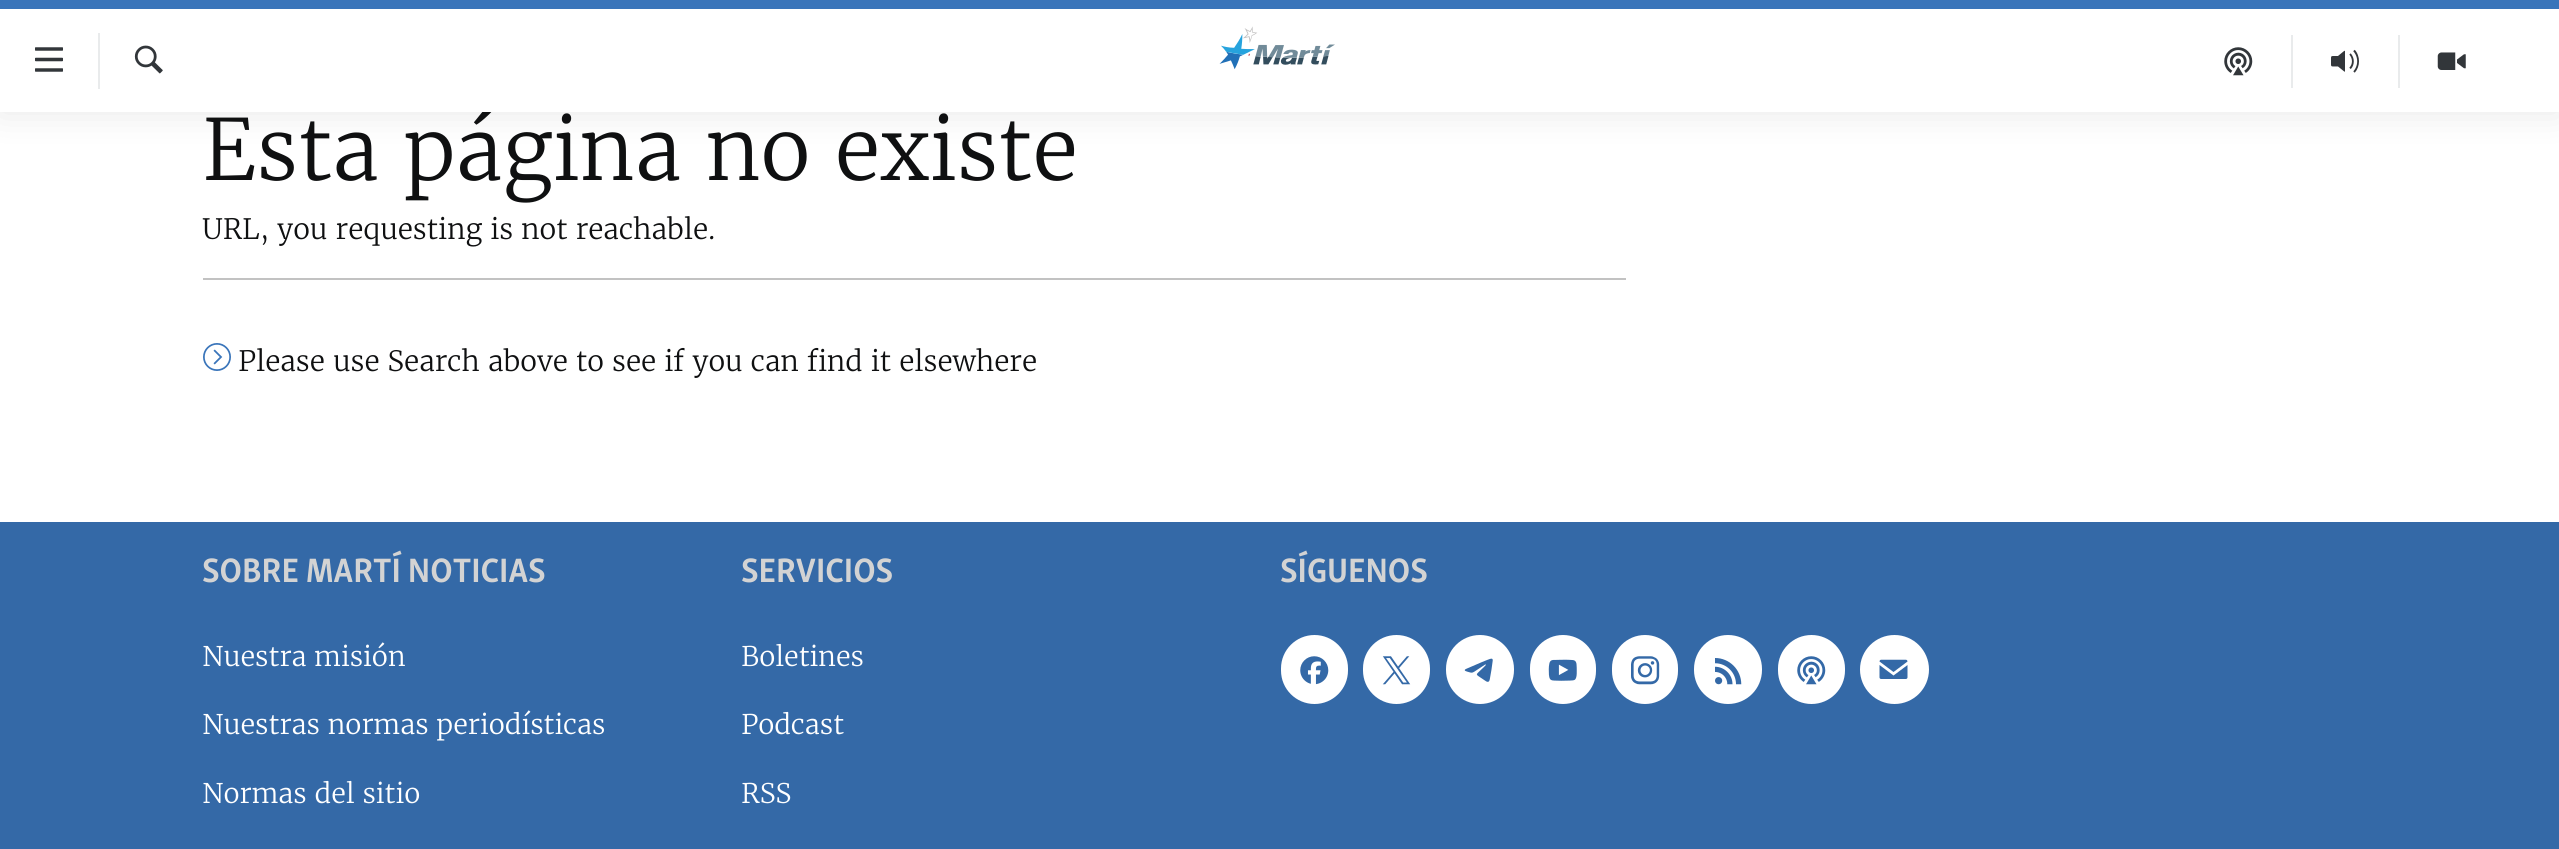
#include <cairo/cairo.h>
#include <math.h>
#include <stddef.h>


static void rounded_rect(cairo_t *cr, double x, double y, double w, double h, double r) {
  cairo_new_sub_path(cr);
  cairo_arc(cr, x + w - r, y + h - r, r, 0, M_PI / 2);
  cairo_arc(cr, x + r, y + h - r, r, M_PI / 2, M_PI);
  cairo_arc(cr, x + r, y + r, r, M_PI, 1.5 * M_PI);
  cairo_arc(cr, x + w - r, y + r, r, 1.5 * M_PI, 2 * M_PI);
  cairo_close_path(cr);
}

static void draw_shadow(cairo_t *cr, double x, double y, double w, double h, double r, double blur, double alpha) {
  cairo_push_group_with_content(cr, CAIRO_CONTENT_ALPHA);
  cairo_set_operator(cr, CAIRO_OPERATOR_SOURCE);
  for (int i = 15; i >= -15 && fmin(w, h) + blur * i / 3 > 0; i -= 2) {
    double e = blur * i / 6;
    cairo_set_source_rgba(cr, 0, 0, 0, alpha * erfc((i - 1) / 8.5) / 2);
    rounded_rect(cr, x - e, y - e, w + 2 * e, h + 2 * e, fmax(0, fmin(r + e + blur * .6, fmin(w, h) / 2 + e)));
    cairo_fill(cr);
  }
  cairo_pattern_t *soft = cairo_pop_group(cr);
  cairo_mask(cr, soft);
  cairo_pattern_destroy(soft);
}

static void draw_image(cairo_t *cr, const char *path, double x, double y, double w, double h) {
  cairo_surface_t *image = cairo_image_surface_create_from_png(path);
  cairo_save(cr);
  cairo_set_source_surface(cr, image, x, y);
  cairo_rectangle(cr, x, y, w, h);
  cairo_fill(cr);
  cairo_restore(cr);
  cairo_surface_destroy(image);
}

static void draw(cairo_t *cr) {
  cairo_set_source_rgb(cr, 1, 1, 1);
  cairo_paint(cr);
  cairo_set_source_rgb(cr, 0, 0, 0);
  draw_shadow(cr, 0, 0, 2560, 112, 0, 17.5, 0.1);
  cairo_set_source_rgb(cr, 58 / 255.0, 117 / 255.0, 186 / 255.0);
  cairo_rectangle(cr, 0, 0, 2559, 9);
  cairo_fill(cr);
  cairo_set_source_rgb(cr, 194 / 255.0, 194 / 255.0, 194 / 255.0);
  cairo_rectangle(cr, 203, 278, 1423, 2);
  cairo_fill(cr);
  draw_image(cr, "images/7.png", 203, 343, 28, 28);
  cairo_set_source_rgb(cr, 52 / 255.0, 105 / 255.0, 167 / 255.0);
  cairo_rectangle(cr, 0, 522, 2559, 327);
  cairo_fill(cr);
  cairo_set_source_rgb(cr, 1, 1, 1);
  rounded_rect(cr, 1281, 635, 67, 69, 33.5);
  cairo_fill(cr);
  draw_image(cr, "images/8.png", 1300, 656, 29, 29);
  rounded_rect(cr, 1363, 635, 67, 69, 33.5);
  cairo_fill(cr);
  draw_image(cr, "images/9.png", 1382, 656, 29, 29);
  rounded_rect(cr, 1446, 635, 68, 69, 34);
  cairo_fill(cr);
  draw_image(cr, "images/10.png", 1464, 658, 29, 24);
  rounded_rect(cr, 1530, 635, 66, 69, 33);
  cairo_fill(cr);
  draw_image(cr, "images/11.png", 1548, 659, 29, 22);
  rounded_rect(cr, 1612, 635, 66, 69, 33);
  cairo_fill(cr);
  draw_image(cr, "images/12.png", 1631, 656, 29, 29);
  rounded_rect(cr, 1694, 635, 68, 69, 34);
  cairo_fill(cr);
  draw_image(cr, "images/13.png", 1715, 658, 27, 27);
  rounded_rect(cr, 1778, 635, 67, 69, 33.5);
  cairo_fill(cr);
  draw_image(cr, "images/14.png", 1797, 656, 29, 29);
  cairo_arc(cr, 1894.5, 669.5, 34.5, 0, 2 * M_PI);
  cairo_fill(cr);
  draw_image(cr, "images/15.png", 1879, 659, 29, 20);
  cairo_select_font_face(cr, "Merriweather Light", CAIRO_FONT_SLANT_NORMAL, CAIRO_FONT_WEIGHT_NORMAL);
  cairo_set_font_size(cr, 84);
  cairo_set_source_rgb(cr, 15 / 255.0, 16 / 255.0, 17 / 255.0);
  cairo_move_to(cr, 202, 180);
  cairo_show_text(cr, "Esta página no existe");
  cairo_set_source_rgb(cr, 1, 1, 1);
  cairo_rectangle(cr, 0, 9, 2559, 103);
  cairo_fill(cr);
  draw_image(cr, "images/1.png", 35, 47, 28, 25);
  draw_image(cr, "images/3.png", 1219, 26, 116, 44);
  draw_image(cr, "images/2.png", 134, 45, 29, 29);
  cairo_set_source_rgb(cr, 233 / 255.0, 235 / 255.0, 236 / 255.0);
  cairo_rectangle(cr, 98, 33, 2, 56);
  cairo_fill(cr);
  draw_image(cr, "images/4.png", 2224, 47, 29, 29);
  cairo_rectangle(cr, 2291, 35, 2, 53);
  cairo_fill(cr);
  draw_image(cr, "images/5.png", 2331, 49, 28, 24);
  cairo_rectangle(cr, 2398, 35, 2, 53);
  cairo_fill(cr);
  draw_image(cr, "images/6.png", 2437, 52, 29, 18);
  cairo_set_font_size(cr, 28);
  cairo_set_source_rgb(cr, 15 / 255.0, 16 / 255.0, 17 / 255.0);
  cairo_move_to(cr, 202, 239);
  cairo_show_text(cr, "URL, you requesting is not reachable.");
  cairo_move_to(cr, 238, 371);
  cairo_show_text(cr, "Please use Search above to see if you can find it elsewhere");
  cairo_select_font_face(cr, "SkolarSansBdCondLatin", CAIRO_FONT_SLANT_NORMAL, CAIRO_FONT_WEIGHT_BOLD);
  cairo_set_font_size(cr, 34.75);
  cairo_set_source_rgb(cr, 211 / 255.0, 211 / 255.0, 211 / 255.0);
  cairo_move_to(cr, 202, 582);
  cairo_show_text(cr, "SOBRE MARTÍ NOTICIAS");
  cairo_select_font_face(cr, "Merriweather Light", CAIRO_FONT_SLANT_NORMAL, CAIRO_FONT_WEIGHT_NORMAL);
  cairo_set_font_size(cr, 27);
  cairo_set_source_rgb(cr, 1, 1, 1);
  cairo_move_to(cr, 202, 666);
  cairo_show_text(cr, "Nuestra misión");
  cairo_move_to(cr, 202, 734);
  cairo_show_text(cr, "Nuestras normas periodísticas");
  cairo_move_to(cr, 202, 803);
  cairo_show_text(cr, "Normas del sitio");
  cairo_select_font_face(cr, "SkolarSansBdCondLatin", CAIRO_FONT_SLANT_NORMAL, CAIRO_FONT_WEIGHT_BOLD);
  cairo_set_font_size(cr, 34.75);
  cairo_set_source_rgb(cr, 211 / 255.0, 211 / 255.0, 211 / 255.0);
  cairo_move_to(cr, 741, 582);
  cairo_show_text(cr, "SERVICIOS");
  cairo_select_font_face(cr, "Merriweather Light", CAIRO_FONT_SLANT_NORMAL, CAIRO_FONT_WEIGHT_NORMAL);
  cairo_set_font_size(cr, 27);
  cairo_set_source_rgb(cr, 1, 1, 1);
  cairo_move_to(cr, 741, 666);
  cairo_show_text(cr, "Boletines");
  cairo_move_to(cr, 741, 734);
  cairo_show_text(cr, "Podcast");
  cairo_move_to(cr, 741, 803);
  cairo_show_text(cr, "RSS");
  cairo_select_font_face(cr, "SkolarSansBdCondLatin", CAIRO_FONT_SLANT_NORMAL, CAIRO_FONT_WEIGHT_BOLD);
  cairo_set_font_size(cr, 34.75);
  cairo_set_source_rgb(cr, 211 / 255.0, 211 / 255.0, 211 / 255.0);
  cairo_move_to(cr, 1280, 582);
  cairo_show_text(cr, "SÍGUENOS");
}

int main(void) {
  cairo_surface_t *surface = cairo_image_surface_create(CAIRO_FORMAT_RGB24, 2559, 849);
  cairo_t *cr = cairo_create(surface);
  cairo_font_options_t *options = cairo_font_options_create();
  cairo_font_options_set_hint_metrics(options, CAIRO_HINT_METRICS_OFF);
  cairo_font_options_set_hint_style(options, CAIRO_HINT_STYLE_NONE);
  cairo_set_font_options(cr, options);
  cairo_set_miter_limit(cr, 4);
  draw(cr);
  cairo_surface_write_to_png(surface, "out.png");
  cairo_font_options_destroy(options);
  cairo_destroy(cr);
  cairo_surface_destroy(surface);
  return 0;
}
